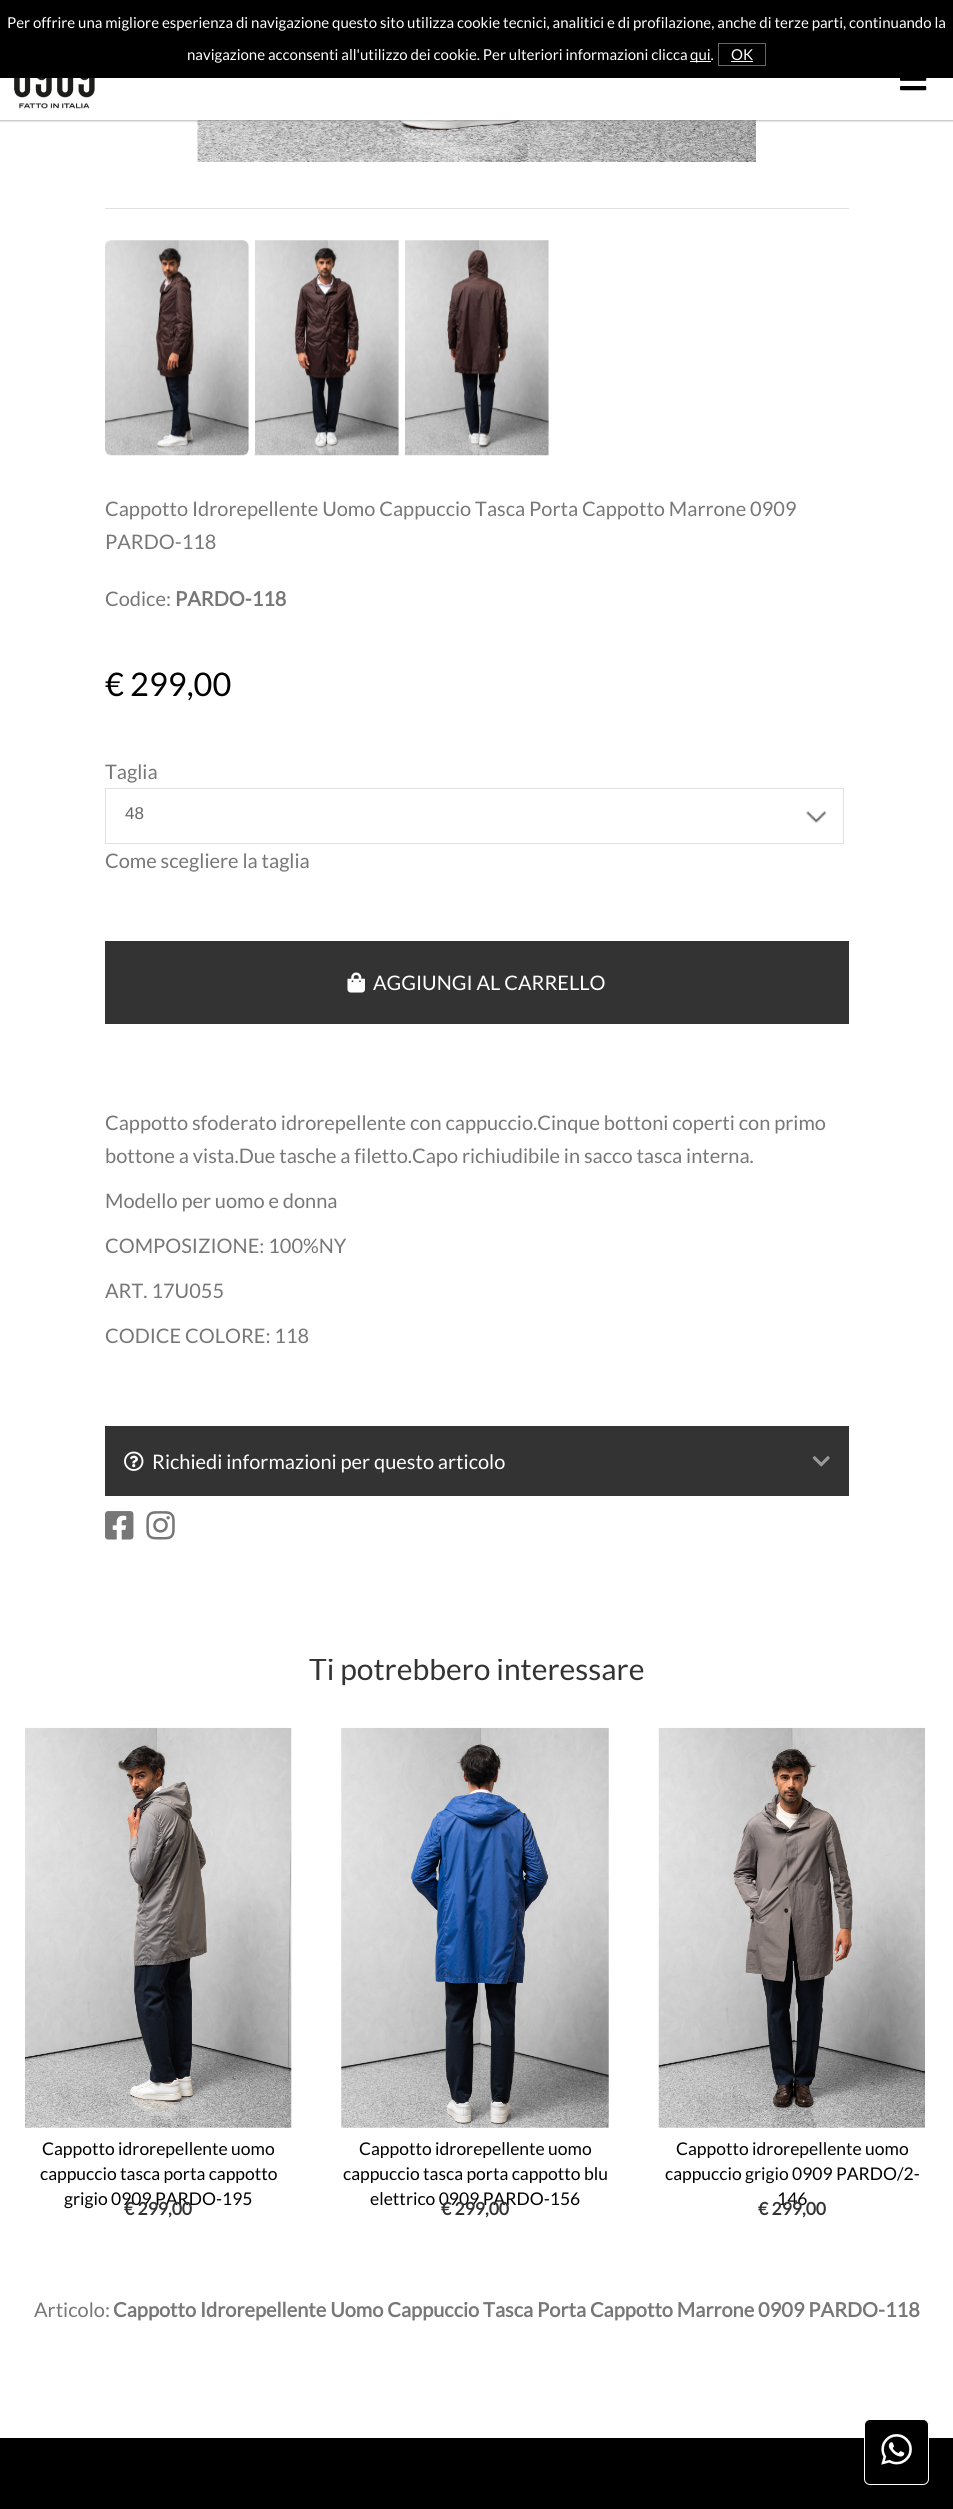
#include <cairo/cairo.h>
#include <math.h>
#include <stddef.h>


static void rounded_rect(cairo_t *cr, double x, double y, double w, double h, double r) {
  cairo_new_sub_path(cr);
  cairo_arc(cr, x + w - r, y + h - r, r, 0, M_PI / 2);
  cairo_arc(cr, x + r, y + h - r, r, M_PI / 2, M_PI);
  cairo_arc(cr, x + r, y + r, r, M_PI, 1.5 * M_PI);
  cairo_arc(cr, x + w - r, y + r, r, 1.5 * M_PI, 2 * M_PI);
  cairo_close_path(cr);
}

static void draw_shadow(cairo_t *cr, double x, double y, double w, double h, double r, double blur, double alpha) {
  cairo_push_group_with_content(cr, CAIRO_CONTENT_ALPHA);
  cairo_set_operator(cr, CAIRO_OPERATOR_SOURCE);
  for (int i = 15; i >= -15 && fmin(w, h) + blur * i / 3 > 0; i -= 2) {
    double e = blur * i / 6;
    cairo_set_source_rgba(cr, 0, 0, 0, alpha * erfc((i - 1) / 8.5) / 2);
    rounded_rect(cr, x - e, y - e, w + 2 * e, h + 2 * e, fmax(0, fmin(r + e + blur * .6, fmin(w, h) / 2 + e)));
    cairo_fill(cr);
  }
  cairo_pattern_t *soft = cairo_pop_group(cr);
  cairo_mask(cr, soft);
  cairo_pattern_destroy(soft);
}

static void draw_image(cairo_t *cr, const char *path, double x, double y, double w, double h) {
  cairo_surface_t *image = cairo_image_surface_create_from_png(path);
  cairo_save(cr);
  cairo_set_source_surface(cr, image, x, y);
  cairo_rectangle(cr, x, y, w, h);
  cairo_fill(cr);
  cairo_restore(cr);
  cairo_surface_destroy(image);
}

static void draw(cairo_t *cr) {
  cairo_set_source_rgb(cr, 1, 1, 1);
  cairo_paint(cr);
  draw_image(cr, "images/3.png", 197, 120, 559, 42);
  cairo_set_source_rgb(cr, 135 / 255.0, 135 / 255.0, 135 / 255.0);
  draw_shadow(cr, 0, 1, 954, 120, 0, 1, 0.6);
  cairo_set_source_rgb(cr, 1, 1, 1);
  cairo_rectangle(cr, 0, 78, 953, 42);
  cairo_fill(cr);
  draw_image(cr, "images/1.png", 14, 78, 81, 31);
  draw_image(cr, "images/2.png", 900, 78, 27, 13);
  cairo_set_source_rgb(cr, 0, 0, 0);
  cairo_rectangle(cr, 0, 0, 953, 78);
  cairo_fill(cr);
  cairo_set_source_rgb(cr, 1, 1, 1);
  cairo_rectangle(cr, 690, 61, 21, 1);
  cairo_fill(cr);
  cairo_rectangle(cr, 718.5, 43.5, 47, 22);
  cairo_set_source_rgb(cr, 102 / 255.0, 102 / 255.0, 102 / 255.0);
  cairo_set_line_width(cr, 1);
  cairo_stroke(cr);
  cairo_set_source_rgb(cr, 1, 1, 1);
  cairo_rectangle(cr, 731, 61, 22, 1);
  cairo_fill(cr);
  cairo_set_source_rgb(cr, 225 / 255.0, 225 / 255.0, 225 / 255.0);
  cairo_rectangle(cr, 105, 208, 744, 1);
  cairo_fill(cr);
  draw_image(cr, "images/4.png", 105, 240, 144, 216);
  draw_image(cr, "images/5.png", 255, 240, 144, 216);
  draw_image(cr, "images/6.png", 405, 240, 144, 216);
  draw_image(cr, "images/7.png", 806, 811, 21, 12);
  cairo_rectangle(cr, 105.5, 788.5, 738, 55);
  cairo_stroke(cr);
  cairo_set_source_rgb(cr, 51 / 255.0, 51 / 255.0, 51 / 255.0);
  cairo_rectangle(cr, 105, 941, 744, 83);
  cairo_fill(cr);
  draw_image(cr, "images/8.png", 347, 972, 18, 21);
  cairo_rectangle(cr, 105, 1426, 744, 70);
  cairo_fill(cr);
  draw_image(cr, "images/9.png", 124, 1451, 20, 20);
  draw_image(cr, "images/10.png", 812, 1456, 18, 11);
  draw_image(cr, "images/11.png", 105, 1511, 29, 29);
  draw_image(cr, "images/12.png", 146, 1511, 29, 29);
  draw_image(cr, "images/13.png", 25, 1727, 267, 401);
  draw_image(cr, "images/14.png", 341, 1727, 268, 401);
  draw_image(cr, "images/15.png", 658, 1727, 267, 401);
  cairo_set_source_rgb(cr, 0, 0, 0);
  cairo_rectangle(cr, 0, 2438, 953, 71);
  cairo_fill(cr);
  rounded_rect(cr, 864.5, 2419.5, 64, 65, 5.5);
  cairo_fill_preserve(cr);
  cairo_set_source_rgb(cr, 1, 1, 1);
  cairo_stroke(cr);
  draw_image(cr, "images/16.png", 881, 2434, 31, 31);
  cairo_select_font_face(cr, "Lato", CAIRO_FONT_SLANT_NORMAL, CAIRO_FONT_WEIGHT_NORMAL);
  cairo_set_font_size(cr, 15);
  cairo_move_to(cr, 7, 28);
  cairo_show_text(cr, "Per offrire una migliore esperienza di navigazione questo sito utilizza cookie tecnici, analitici e di profilazione, anche di terze parti, continuando la");
  cairo_move_to(cr, 187, 60);
  cairo_show_text(cr, "navigazione acconsenti all'utilizzo dei cookie. Per ulteriori informazioni clicca");
  cairo_move_to(cr, 690, 60);
  cairo_show_text(cr, "qui.");
  cairo_move_to(cr, 731, 60);
  cairo_show_text(cr, "OK");
  cairo_set_font_size(cr, 20);
  cairo_set_source_rgb(cr, 119 / 255.0, 119 / 255.0, 119 / 255.0);
  cairo_move_to(cr, 105, 516);
  cairo_show_text(cr, "Cappotto Idrorepellente Uomo Cappuccio Tasca Porta Cappotto Marrone 0909");
  cairo_move_to(cr, 105, 549);
  cairo_show_text(cr, "PARDO-118");
  cairo_move_to(cr, 105, 606);
  cairo_show_text(cr, "Codice:");
  cairo_select_font_face(cr, "Lato", CAIRO_FONT_SLANT_NORMAL, CAIRO_FONT_WEIGHT_BOLD);
  cairo_move_to(cr, 175, 606);
  cairo_show_text(cr, "PARDO-118");
  cairo_select_font_face(cr, "Lato", CAIRO_FONT_SLANT_NORMAL, CAIRO_FONT_WEIGHT_NORMAL);
  cairo_set_font_size(cr, 32.5);
  cairo_set_source_rgb(cr, 0, 0, 0);
  cairo_move_to(cr, 105, 696);
  cairo_show_text(cr, "€ 299,00");
  cairo_set_font_size(cr, 20);
  cairo_set_source_rgb(cr, 119 / 255.0, 119 / 255.0, 119 / 255.0);
  cairo_move_to(cr, 105, 779);
  cairo_show_text(cr, "Taglia");
  cairo_select_font_face(cr, "Liberation Sans", CAIRO_FONT_SLANT_NORMAL, CAIRO_FONT_WEIGHT_NORMAL);
  cairo_set_font_size(cr, 17);
  cairo_set_source_rgb(cr, 102 / 255.0, 102 / 255.0, 102 / 255.0);
  cairo_move_to(cr, 125, 819);
  cairo_show_text(cr, "48");
  cairo_select_font_face(cr, "Lato", CAIRO_FONT_SLANT_NORMAL, CAIRO_FONT_WEIGHT_NORMAL);
  cairo_set_font_size(cr, 20);
  cairo_set_source_rgb(cr, 119 / 255.0, 119 / 255.0, 119 / 255.0);
  cairo_move_to(cr, 105, 868);
  cairo_show_text(cr, "Come scegliere la taglia");
  cairo_set_source_rgb(cr, 1, 1, 1);
  cairo_move_to(cr, 373, 990);
  cairo_show_text(cr, "AGGIUNGI AL CARRELLO");
  cairo_set_source_rgb(cr, 119 / 255.0, 119 / 255.0, 119 / 255.0);
  cairo_move_to(cr, 105, 1130);
  cairo_show_text(cr, "Cappotto sfoderato idrorepellente con cappuccio.Cinque bottoni coperti con primo");
  cairo_move_to(cr, 105, 1163);
  cairo_show_text(cr, "bottone a vista.Due tasche a filetto.Capo richiudibile in sacco tasca interna.");
  cairo_move_to(cr, 105, 1208);
  cairo_show_text(cr, "Modello per uomo e donna");
  cairo_move_to(cr, 105, 1253);
  cairo_show_text(cr, "COMPOSIZIONE: 100%NY");
  cairo_move_to(cr, 105, 1298);
  cairo_show_text(cr, "ART. 17U055");
  cairo_move_to(cr, 105, 1343);
  cairo_show_text(cr, "CODICE COLORE: 118");
  cairo_set_source_rgb(cr, 1, 1, 1);
  cairo_move_to(cr, 152, 1469);
  cairo_show_text(cr, "Richiedi informazioni per questo articolo");
  cairo_save(cr);
  cairo_rectangle(cr, 13, 1659, 928, 609);
  cairo_clip(cr);
  cairo_set_font_size(cr, 30);
  cairo_set_source_rgb(cr, 51 / 255.0, 51 / 255.0, 51 / 255.0);
  cairo_move_to(cr, 309, 1680);
  cairo_show_text(cr, "Ti potrebbero interessare");
  cairo_restore(cr);
  cairo_set_font_size(cr, 17.5);
  cairo_set_source_rgb(cr, 0, 0, 0);
  cairo_move_to(cr, 42, 2155);
  cairo_show_text(cr, "Cappotto idrorepellente uomo");
  cairo_move_to(cr, 40, 2180);
  cairo_show_text(cr, "cappuccio tasca porta cappotto");
  cairo_move_to(cr, 64, 2205);
  cairo_show_text(cr, "grigio 0909 PARDO-195");
  cairo_select_font_face(cr, "Lato", CAIRO_FONT_SLANT_NORMAL, CAIRO_FONT_WEIGHT_BOLD);
  cairo_set_source_rgb(cr, 51 / 255.0, 51 / 255.0, 51 / 255.0);
  cairo_move_to(cr, 124, 2215);
  cairo_show_text(cr, "€ 299,00");
  cairo_select_font_face(cr, "Lato", CAIRO_FONT_SLANT_NORMAL, CAIRO_FONT_WEIGHT_NORMAL);
  cairo_set_source_rgb(cr, 0, 0, 0);
  cairo_move_to(cr, 359, 2155);
  cairo_show_text(cr, "Cappotto idrorepellente uomo");
  cairo_move_to(cr, 343, 2180);
  cairo_show_text(cr, "cappuccio tasca porta cappotto blu");
  cairo_move_to(cr, 370, 2205);
  cairo_show_text(cr, "elettrico 0909 PARDO-156");
  cairo_select_font_face(cr, "Lato", CAIRO_FONT_SLANT_NORMAL, CAIRO_FONT_WEIGHT_BOLD);
  cairo_set_source_rgb(cr, 51 / 255.0, 51 / 255.0, 51 / 255.0);
  cairo_move_to(cr, 441, 2215);
  cairo_show_text(cr, "€ 299,00");
  cairo_select_font_face(cr, "Lato", CAIRO_FONT_SLANT_NORMAL, CAIRO_FONT_WEIGHT_NORMAL);
  cairo_set_source_rgb(cr, 0, 0, 0);
  cairo_move_to(cr, 676, 2155);
  cairo_show_text(cr, "Cappotto idrorepellente uomo");
  cairo_move_to(cr, 665, 2180);
  cairo_show_text(cr, "cappuccio grigio 0909 PARDO/2-");
  cairo_move_to(cr, 777, 2205);
  cairo_show_text(cr, "146");
  cairo_select_font_face(cr, "Lato", CAIRO_FONT_SLANT_NORMAL, CAIRO_FONT_WEIGHT_BOLD);
  cairo_set_source_rgb(cr, 51 / 255.0, 51 / 255.0, 51 / 255.0);
  cairo_move_to(cr, 758, 2215);
  cairo_show_text(cr, "€ 299,00");
  cairo_select_font_face(cr, "Lato", CAIRO_FONT_SLANT_NORMAL, CAIRO_FONT_WEIGHT_NORMAL);
  cairo_set_font_size(cr, 20);
  cairo_set_source_rgb(cr, 119 / 255.0, 119 / 255.0, 119 / 255.0);
  cairo_move_to(cr, 34, 2317);
  cairo_show_text(cr, "Articolo:");
  cairo_select_font_face(cr, "Lato", CAIRO_FONT_SLANT_NORMAL, CAIRO_FONT_WEIGHT_BOLD);
  cairo_move_to(cr, 113, 2317);
  cairo_show_text(cr, "Cappotto Idrorepellente Uomo Cappuccio Tasca Porta Cappotto Marrone 0909 PARDO-118");
}

int main(void) {
  cairo_surface_t *surface = cairo_image_surface_create(CAIRO_FORMAT_RGB24, 953, 2509);
  cairo_t *cr = cairo_create(surface);
  cairo_font_options_t *options = cairo_font_options_create();
  cairo_font_options_set_hint_metrics(options, CAIRO_HINT_METRICS_OFF);
  cairo_font_options_set_hint_style(options, CAIRO_HINT_STYLE_NONE);
  cairo_set_font_options(cr, options);
  cairo_set_miter_limit(cr, 4);
  draw(cr);
  cairo_surface_write_to_png(surface, "out.png");
  cairo_font_options_destroy(options);
  cairo_destroy(cr);
  cairo_surface_destroy(surface);
  return 0;
}
